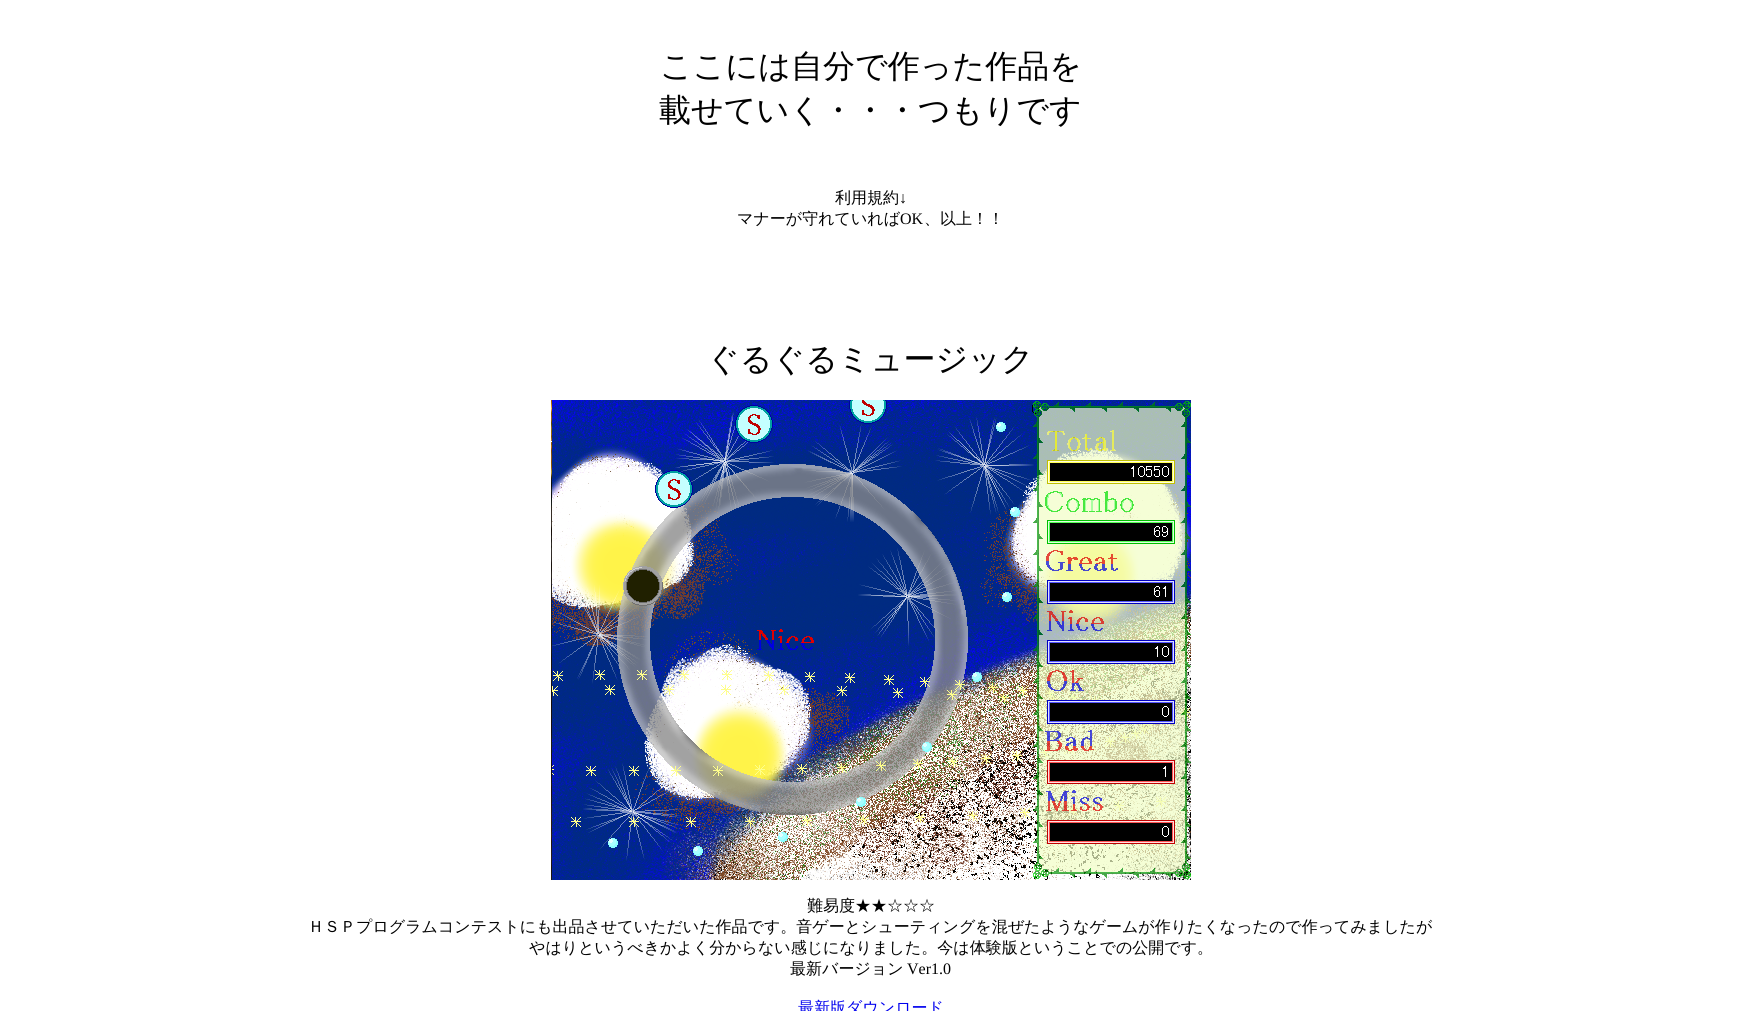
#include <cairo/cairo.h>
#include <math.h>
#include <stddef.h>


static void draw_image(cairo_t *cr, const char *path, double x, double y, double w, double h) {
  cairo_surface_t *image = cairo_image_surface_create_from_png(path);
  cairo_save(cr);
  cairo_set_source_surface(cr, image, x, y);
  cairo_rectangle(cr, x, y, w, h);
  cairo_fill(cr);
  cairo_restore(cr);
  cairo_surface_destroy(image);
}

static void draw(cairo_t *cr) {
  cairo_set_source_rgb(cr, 1, 1, 1);
  cairo_paint(cr);
  draw_image(cr, "images/1.png", 551, 400, 640, 480);
  cairo_select_font_face(cr, "WenQuanYi Zen Hei Medium", CAIRO_FONT_SLANT_NORMAL, CAIRO_FONT_WEIGHT_NORMAL);
  cairo_set_font_size(cr, 32);
  cairo_set_source_rgb(cr, 0, 0, 0);
  cairo_move_to(cr, 660, 77);
  cairo_show_text(cr, "ここには自分で作った作品を");
  cairo_move_to(cr, 659, 121);
  cairo_show_text(cr, "載せていく・・・つもりです");
  cairo_set_font_size(cr, 16);
  cairo_move_to(cr, 835, 203);
  cairo_show_text(cr, "利用規約");
  cairo_select_font_face(cr, "Liberation Serif", CAIRO_FONT_SLANT_NORMAL, CAIRO_FONT_WEIGHT_NORMAL);
  cairo_move_to(cr, 899, 203);
  cairo_show_text(cr, "↓");
  cairo_select_font_face(cr, "WenQuanYi Zen Hei Medium", CAIRO_FONT_SLANT_NORMAL, CAIRO_FONT_WEIGHT_NORMAL);
  cairo_move_to(cr, 737, 224);
  cairo_show_text(cr, "マナーが守れていれば");
  cairo_select_font_face(cr, "Liberation Serif", CAIRO_FONT_SLANT_NORMAL, CAIRO_FONT_WEIGHT_NORMAL);
  cairo_move_to(cr, 900, 224);
  cairo_show_text(cr, "OK");
  cairo_select_font_face(cr, "WenQuanYi Zen Hei Medium", CAIRO_FONT_SLANT_NORMAL, CAIRO_FONT_WEIGHT_NORMAL);
  cairo_move_to(cr, 924, 224);
  cairo_show_text(cr, "、以上！！");
  cairo_set_font_size(cr, 32);
  cairo_move_to(cr, 707, 370);
  cairo_show_text(cr, "ぐるぐるミュージック");
  cairo_set_font_size(cr, 16);
  cairo_move_to(cr, 807, 911);
  cairo_show_text(cr, "難易度★★☆☆☆");
  cairo_move_to(cr, 308, 932);
  cairo_show_text(cr, "ＨＳＰプログラムコンテストにも出品させていただいた作品です。音ゲーとシューティングを混ぜたようなゲームが作りたくなったので作ってみましたが");
  cairo_move_to(cr, 529, 953);
  cairo_show_text(cr, "やはりというべきかよく分からない感じになりました。今は体験版ということでの公開です。");
  cairo_move_to(cr, 790, 974);
  cairo_show_text(cr, "最新バージョン");
  cairo_select_font_face(cr, "Liberation Serif", CAIRO_FONT_SLANT_NORMAL, CAIRO_FONT_WEIGHT_NORMAL);
  cairo_move_to(cr, 907, 974);
  cairo_show_text(cr, "Ver1.0");
  cairo_select_font_face(cr, "WenQuanYi Zen Hei Medium", CAIRO_FONT_SLANT_NORMAL, CAIRO_FONT_WEIGHT_NORMAL);
  cairo_set_source_rgb(cr, 0, 0, 238 / 255.0);
  cairo_move_to(cr, 798, 1013);
  cairo_show_text(cr, "最新版ダウンロード");
}

int main(void) {
  cairo_surface_t *surface = cairo_image_surface_create(CAIRO_FORMAT_RGB24, 1741, 1011);
  cairo_t *cr = cairo_create(surface);
  cairo_font_options_t *options = cairo_font_options_create();
  cairo_font_options_set_hint_metrics(options, CAIRO_HINT_METRICS_OFF);
  cairo_font_options_set_hint_style(options, CAIRO_HINT_STYLE_NONE);
  cairo_set_font_options(cr, options);
  cairo_set_miter_limit(cr, 4);
  draw(cr);
  cairo_surface_write_to_png(surface, "out.png");
  cairo_font_options_destroy(options);
  cairo_destroy(cr);
  cairo_surface_destroy(surface);
  return 0;
}
